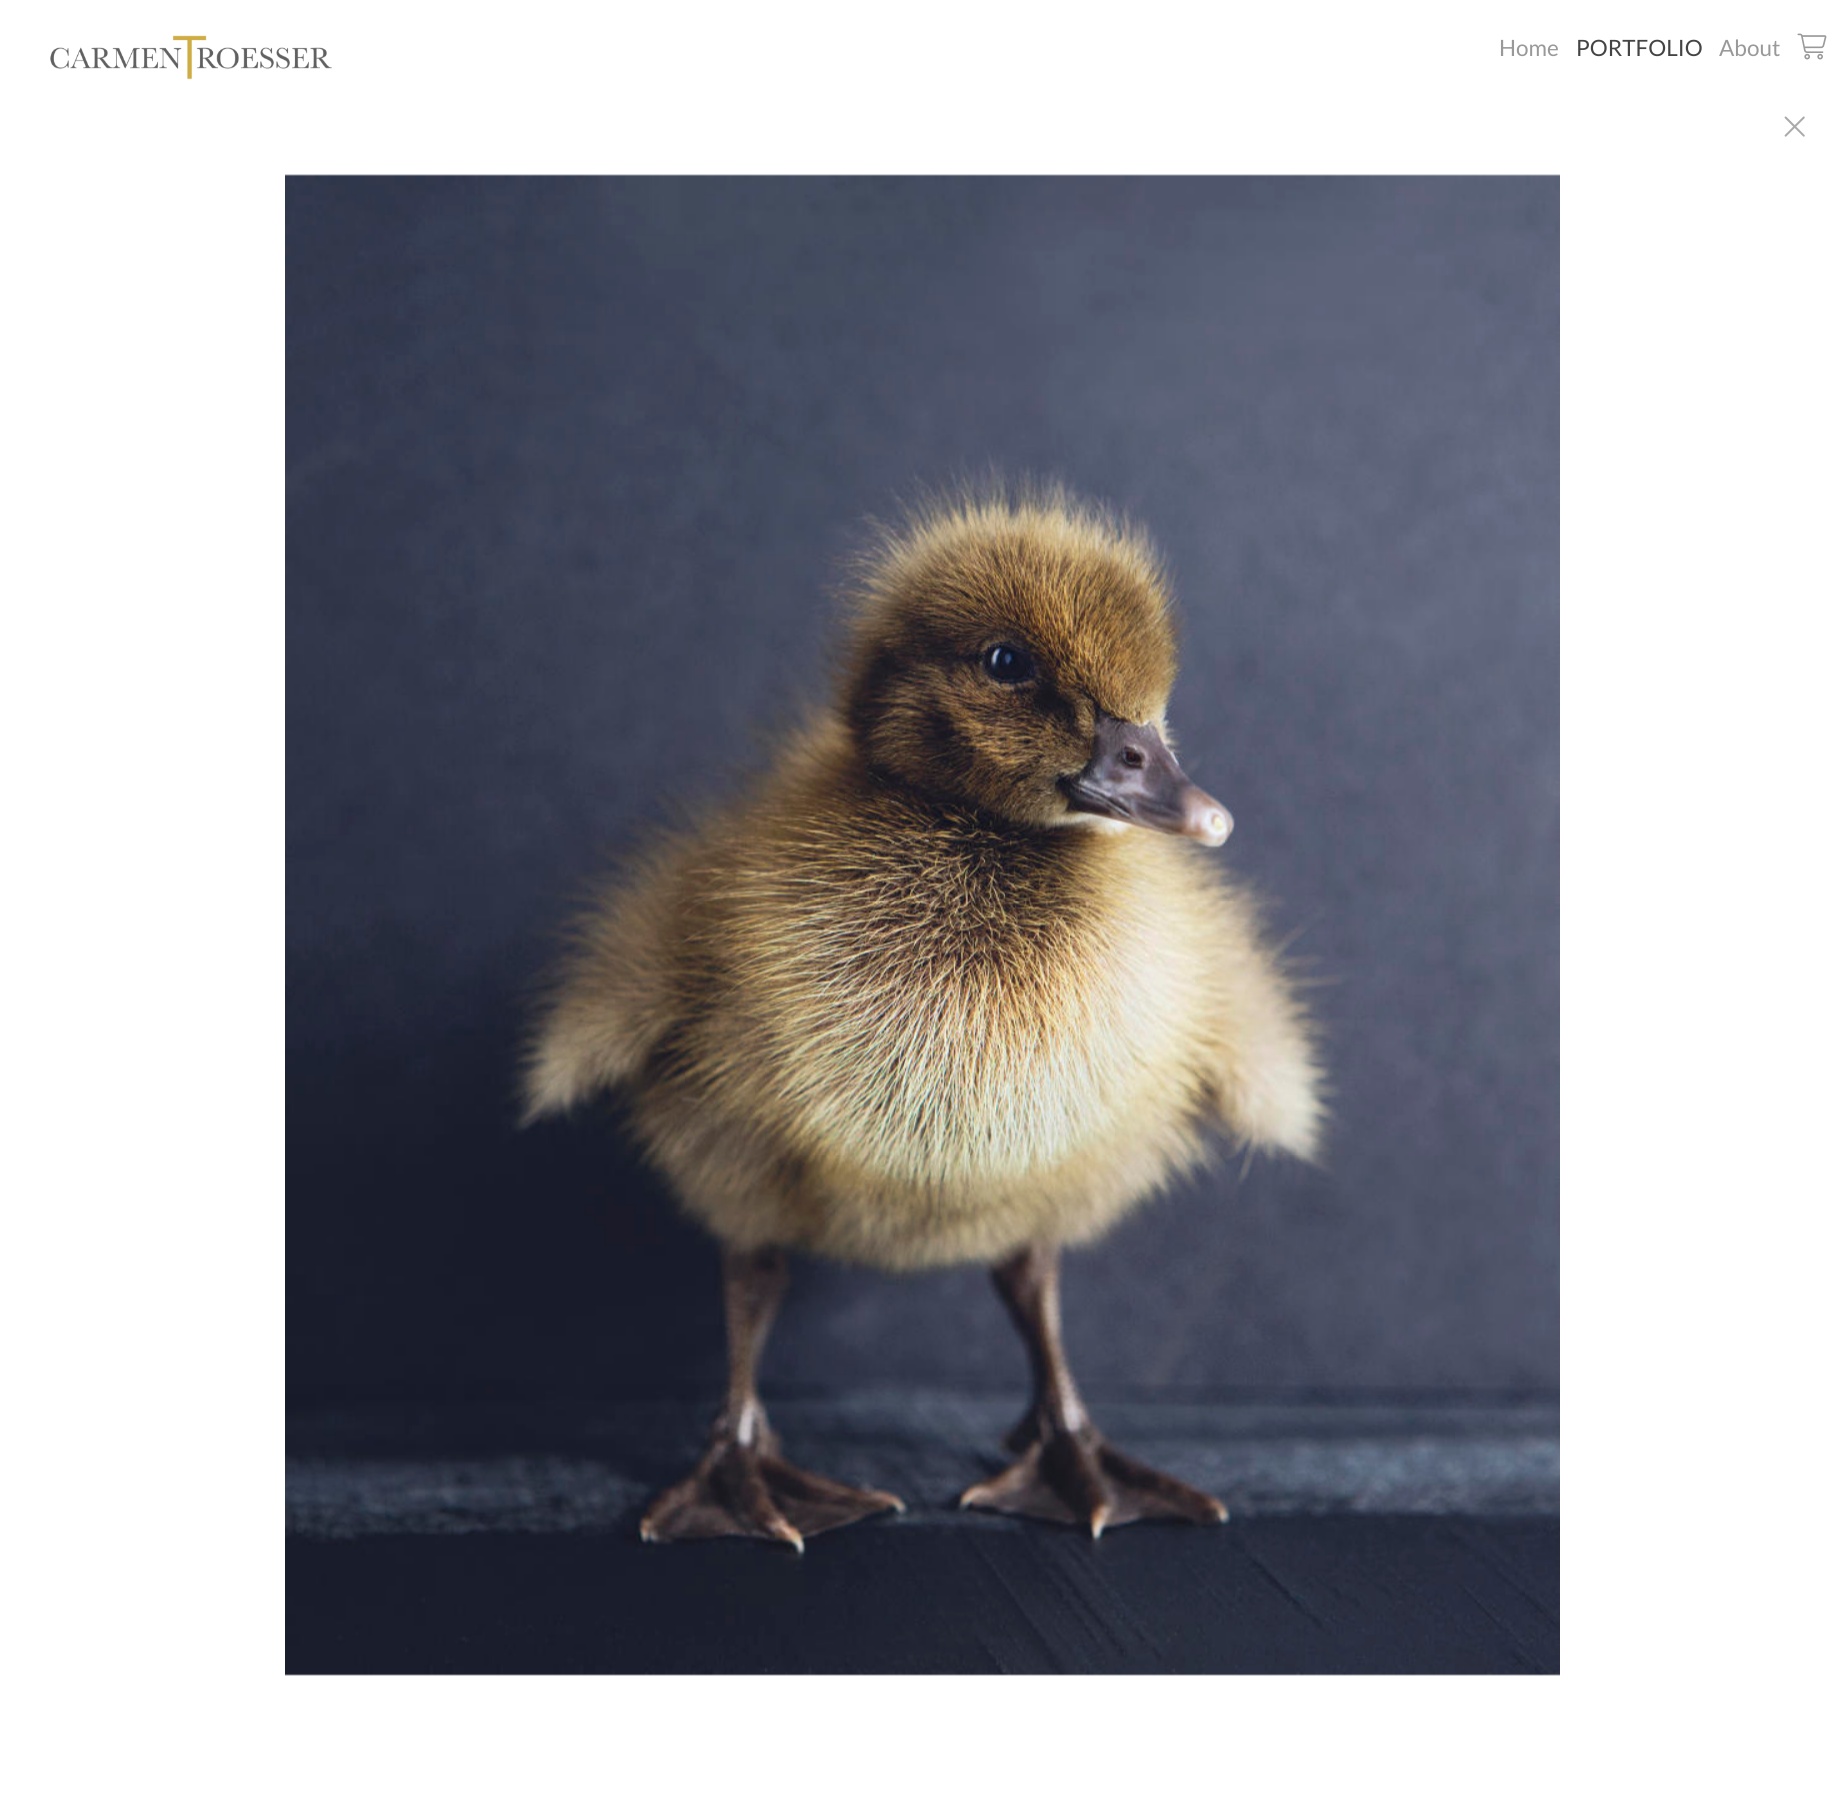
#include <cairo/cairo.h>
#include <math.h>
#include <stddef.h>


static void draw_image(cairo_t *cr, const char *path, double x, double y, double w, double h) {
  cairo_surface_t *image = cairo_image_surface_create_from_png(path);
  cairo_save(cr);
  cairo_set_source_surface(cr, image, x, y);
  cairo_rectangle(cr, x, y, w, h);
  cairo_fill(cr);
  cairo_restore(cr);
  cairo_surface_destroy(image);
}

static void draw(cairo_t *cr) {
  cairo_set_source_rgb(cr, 1, 1, 1);
  cairo_paint(cr);
  draw_image(cr, "images/1.png", 50, 35, 282, 45);
  draw_image(cr, "images/2.png", 1797, 33, 30, 27);
  draw_image(cr, "images/3.png", 1784, 116, 21, 21);
  draw_image(cr, "images/4.png", 285, 174, 1275, 1502);
  cairo_select_font_face(cr, "Lato", CAIRO_FONT_SLANT_NORMAL, CAIRO_FONT_WEIGHT_NORMAL);
  cairo_set_font_size(cr, 22.5);
  cairo_set_source_rgb(cr, 153 / 255.0, 153 / 255.0, 153 / 255.0);
  cairo_move_to(cr, 1499, 56);
  cairo_show_text(cr, "Home");
  cairo_set_source_rgb(cr, 68 / 255.0, 68 / 255.0, 68 / 255.0);
  cairo_move_to(cr, 1576, 56);
  cairo_show_text(cr, "PORTFOLIO");
  cairo_set_source_rgb(cr, 153 / 255.0, 153 / 255.0, 153 / 255.0);
  cairo_move_to(cr, 1719, 56);
  cairo_show_text(cr, "About");
}

int main(void) {
  cairo_surface_t *surface = cairo_image_surface_create(CAIRO_FORMAT_RGB24, 1844, 1799);
  cairo_t *cr = cairo_create(surface);
  cairo_font_options_t *options = cairo_font_options_create();
  cairo_font_options_set_hint_metrics(options, CAIRO_HINT_METRICS_OFF);
  cairo_font_options_set_hint_style(options, CAIRO_HINT_STYLE_NONE);
  cairo_set_font_options(cr, options);
  cairo_set_miter_limit(cr, 4);
  draw(cr);
  cairo_surface_write_to_png(surface, "out.png");
  cairo_font_options_destroy(options);
  cairo_destroy(cr);
  cairo_surface_destroy(surface);
  return 0;
}
